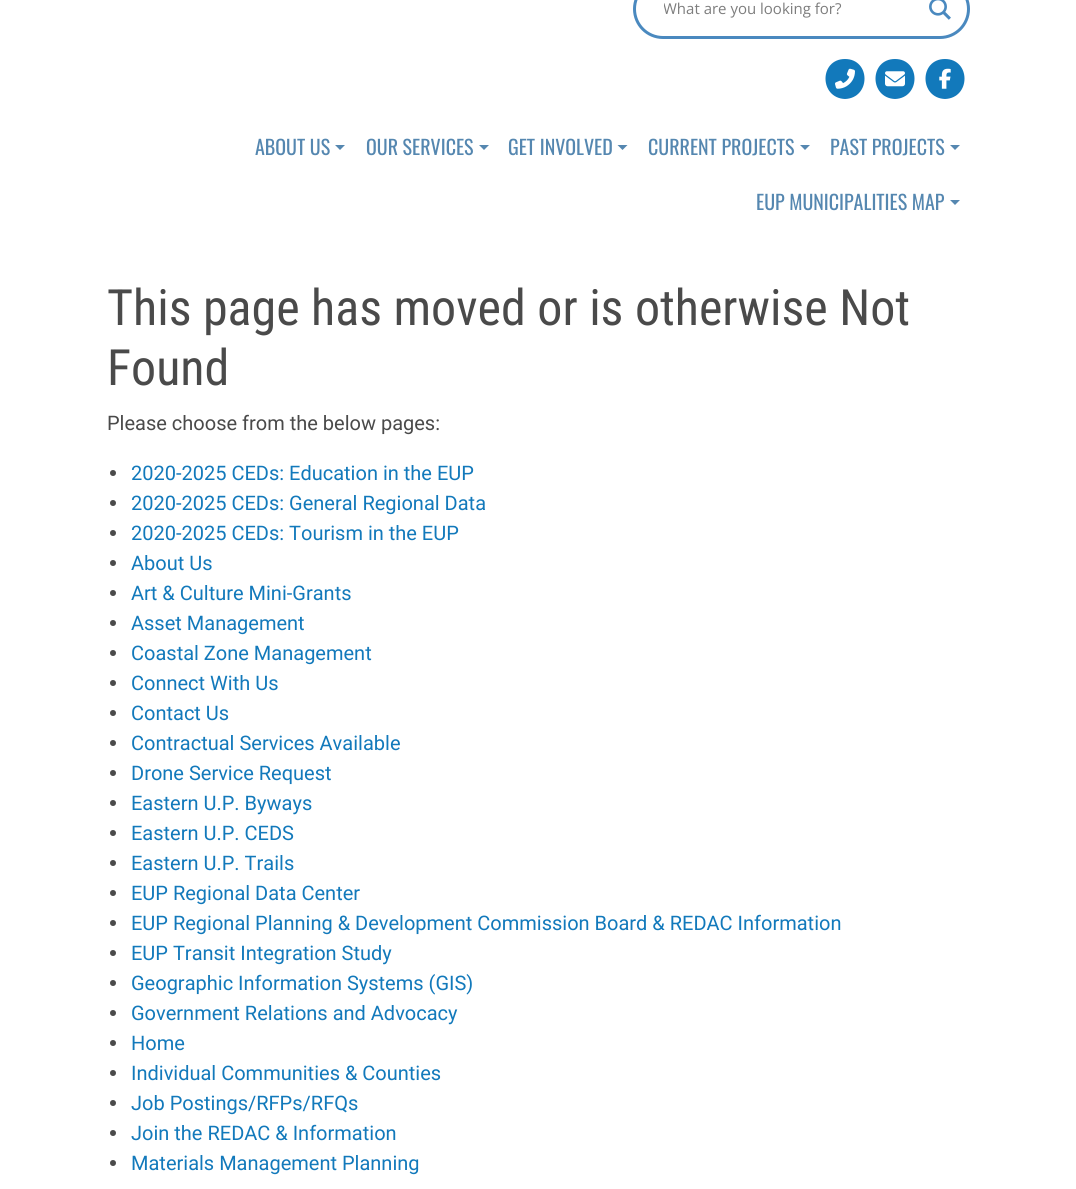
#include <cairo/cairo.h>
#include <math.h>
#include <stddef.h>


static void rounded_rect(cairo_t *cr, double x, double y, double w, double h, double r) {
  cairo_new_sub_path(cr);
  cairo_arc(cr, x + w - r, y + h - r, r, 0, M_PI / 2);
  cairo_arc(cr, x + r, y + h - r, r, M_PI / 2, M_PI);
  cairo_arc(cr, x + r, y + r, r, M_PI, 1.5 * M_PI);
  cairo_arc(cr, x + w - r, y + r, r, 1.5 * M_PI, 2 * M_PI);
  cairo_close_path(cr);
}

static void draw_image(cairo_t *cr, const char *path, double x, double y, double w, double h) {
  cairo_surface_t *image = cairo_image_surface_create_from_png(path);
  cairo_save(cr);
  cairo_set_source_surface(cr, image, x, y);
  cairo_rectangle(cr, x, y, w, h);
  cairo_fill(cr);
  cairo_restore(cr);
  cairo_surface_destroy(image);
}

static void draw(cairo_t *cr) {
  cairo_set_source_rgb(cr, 1, 1, 1);
  cairo_paint(cr);
  rounded_rect(cr, 634.5, -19.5, 334, 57, 28.5);
  cairo_set_source_rgb(cr, 74 / 255.0, 137 / 255.0, 191 / 255.0);
  cairo_set_line_width(cr, 3);
  cairo_stroke(cr);
  draw_image(cr, "images/1.png", 929, 0, 22, 20);
  cairo_set_source_rgb(cr, 18 / 255.0, 121 / 255.0, 187 / 255.0);
  cairo_new_path(cr);
  cairo_move_to(cr, 845, 99);
  cairo_curve_to(cr, 871, 98, 871, 59, 845, 59);
  cairo_curve_to(cr, 819, 59, 819, 98, 845, 99);
  cairo_close_path(cr);
  cairo_fill(cr);
  draw_image(cr, "images/2.png", 835, 68, 20, 21);
  cairo_new_path(cr);
  cairo_move_to(cr, 895, 99);
  cairo_curve_to(cr, 921, 98, 921, 59, 895, 59);
  cairo_curve_to(cr, 869, 59, 869, 98, 895, 99);
  cairo_close_path(cr);
  cairo_fill(cr);
  draw_image(cr, "images/3.png", 885, 71, 20, 16);
  cairo_new_path(cr);
  cairo_move_to(cr, 945, 99);
  cairo_curve_to(cr, 971, 98, 971, 59, 945, 59);
  cairo_curve_to(cr, 919, 59, 919, 98, 945, 99);
  cairo_close_path(cr);
  cairo_fill(cr);
  draw_image(cr, "images/4.png", 939, 68, 12, 21);
  cairo_set_source_rgb(cr, 85 / 255.0, 135 / 255.0, 176 / 255.0);
  cairo_new_path(cr);
  cairo_move_to(cr, 335, 145);
  cairo_line_to(cr, 345, 145);
  cairo_line_to(cr, 340, 150);
  cairo_close_path(cr);
  cairo_fill(cr);
  cairo_new_path(cr);
  cairo_move_to(cr, 479, 145);
  cairo_line_to(cr, 489, 145);
  cairo_line_to(cr, 484, 150);
  cairo_close_path(cr);
  cairo_fill(cr);
  cairo_new_path(cr);
  cairo_move_to(cr, 617.5, 145);
  cairo_line_to(cr, 627.5, 145);
  cairo_line_to(cr, 622.5, 150);
  cairo_close_path(cr);
  cairo_fill(cr);
  cairo_new_path(cr);
  cairo_move_to(cr, 800, 145);
  cairo_line_to(cr, 810, 145);
  cairo_line_to(cr, 805, 150);
  cairo_close_path(cr);
  cairo_fill(cr);
  cairo_new_path(cr);
  cairo_move_to(cr, 950, 145);
  cairo_line_to(cr, 960, 145);
  cairo_line_to(cr, 955, 150);
  cairo_close_path(cr);
  cairo_fill(cr);
  cairo_new_path(cr);
  cairo_move_to(cr, 950, 200);
  cairo_line_to(cr, 960, 200);
  cairo_line_to(cr, 955, 205);
  cairo_close_path(cr);
  cairo_fill(cr);
  cairo_set_source_rgb(cr, 74 / 255.0, 74 / 255.0, 74 / 255.0);
  cairo_arc(cr, 113, 473, 3, 0, 2 * M_PI);
  cairo_fill(cr);
  cairo_arc(cr, 113, 503, 3, 0, 2 * M_PI);
  cairo_fill(cr);
  cairo_arc(cr, 113, 533, 3, 0, 2 * M_PI);
  cairo_fill(cr);
  cairo_arc(cr, 113, 563, 3, 0, 2 * M_PI);
  cairo_fill(cr);
  cairo_arc(cr, 113, 593, 3, 0, 2 * M_PI);
  cairo_fill(cr);
  cairo_arc(cr, 113, 623, 3, 0, 2 * M_PI);
  cairo_fill(cr);
  cairo_arc(cr, 113, 653, 3, 0, 2 * M_PI);
  cairo_fill(cr);
  cairo_arc(cr, 113, 683, 3, 0, 2 * M_PI);
  cairo_fill(cr);
  cairo_arc(cr, 113, 713, 3, 0, 2 * M_PI);
  cairo_fill(cr);
  cairo_arc(cr, 113, 743, 3, 0, 2 * M_PI);
  cairo_fill(cr);
  cairo_arc(cr, 113, 773, 3, 0, 2 * M_PI);
  cairo_fill(cr);
  cairo_arc(cr, 113, 803, 3, 0, 2 * M_PI);
  cairo_fill(cr);
  cairo_arc(cr, 113, 833, 3, 0, 2 * M_PI);
  cairo_fill(cr);
  cairo_arc(cr, 113, 863, 3, 0, 2 * M_PI);
  cairo_fill(cr);
  cairo_arc(cr, 113, 893, 3, 0, 2 * M_PI);
  cairo_fill(cr);
  cairo_arc(cr, 113, 923, 3, 0, 2 * M_PI);
  cairo_fill(cr);
  cairo_arc(cr, 113, 953, 3, 0, 2 * M_PI);
  cairo_fill(cr);
  cairo_arc(cr, 113, 983, 3, 0, 2 * M_PI);
  cairo_fill(cr);
  cairo_arc(cr, 113, 1013, 3, 0, 2 * M_PI);
  cairo_fill(cr);
  cairo_arc(cr, 113, 1043, 3, 0, 2 * M_PI);
  cairo_fill(cr);
  cairo_arc(cr, 113, 1073, 3, 0, 2 * M_PI);
  cairo_fill(cr);
  cairo_arc(cr, 113, 1103, 3, 0, 2 * M_PI);
  cairo_fill(cr);
  cairo_arc(cr, 113, 1133, 3, 0, 2 * M_PI);
  cairo_fill(cr);
  cairo_arc(cr, 113, 1163, 3, 0, 2 * M_PI);
  cairo_fill(cr);
  cairo_save(cr);
  cairo_rectangle(cr, 664, 0, 252, 20);
  cairo_clip(cr);
  cairo_select_font_face(cr, "Open Sans", CAIRO_FONT_SLANT_NORMAL, CAIRO_FONT_WEIGHT_NORMAL);
  cairo_set_font_size(cr, 15);
  cairo_set_source_rgb(cr, 125 / 255.0, 125 / 255.0, 125 / 255.0);
  cairo_move_to(cr, 663, 14);
  cairo_show_text(cr, "What are you looking for?");
  cairo_restore(cr);
  cairo_select_font_face(cr, "Oswald", CAIRO_FONT_SLANT_NORMAL, CAIRO_FONT_WEIGHT_NORMAL);
  cairo_set_font_size(cr, 20);
  cairo_set_source_rgb(cr, 85 / 255.0, 135 / 255.0, 176 / 255.0);
  cairo_move_to(cr, 255, 155);
  cairo_show_text(cr, "ABOUT US");
  cairo_move_to(cr, 366, 155);
  cairo_show_text(cr, "OUR SERVICES");
  cairo_move_to(cr, 508, 155);
  cairo_show_text(cr, "GET INVOLVED");
  cairo_move_to(cr, 648, 155);
  cairo_show_text(cr, "CURRENT PROJECTS");
  cairo_move_to(cr, 830, 155);
  cairo_show_text(cr, "PAST PROJECTS");
  cairo_move_to(cr, 756, 210);
  cairo_show_text(cr, "EUP MUNICIPALITIES MAP");
  cairo_select_font_face(cr, "Roboto Condensed", CAIRO_FONT_SLANT_NORMAL, CAIRO_FONT_WEIGHT_NORMAL);
  cairo_set_font_size(cr, 50);
  cairo_set_source_rgb(cr, 74 / 255.0, 74 / 255.0, 74 / 255.0);
  cairo_move_to(cr, 107, 325);
  cairo_show_text(cr, "This page has moved or is otherwise Not");
  cairo_move_to(cr, 107, 385);
  cairo_show_text(cr, "Found");
  cairo_select_font_face(cr, "Roboto", CAIRO_FONT_SLANT_NORMAL, CAIRO_FONT_WEIGHT_NORMAL);
  cairo_set_font_size(cr, 20);
  cairo_move_to(cr, 107, 430);
  cairo_show_text(cr, "Please choose from the below pages:");
  cairo_set_source_rgb(cr, 18 / 255.0, 121 / 255.0, 187 / 255.0);
  cairo_move_to(cr, 131, 480);
  cairo_show_text(cr, "2020-2025 CEDs: Education in the EUP");
  cairo_move_to(cr, 131, 510);
  cairo_show_text(cr, "2020-2025 CEDs: General Regional Data");
  cairo_move_to(cr, 131, 540);
  cairo_show_text(cr, "2020-2025 CEDs: Tourism in the EUP");
  cairo_move_to(cr, 131, 570);
  cairo_show_text(cr, "About Us");
  cairo_move_to(cr, 131, 600);
  cairo_show_text(cr, "Art & Culture Mini-Grants");
  cairo_move_to(cr, 131, 630);
  cairo_show_text(cr, "Asset Management");
  cairo_move_to(cr, 131, 660);
  cairo_show_text(cr, "Coastal Zone Management");
  cairo_move_to(cr, 131, 690);
  cairo_show_text(cr, "Connect With Us");
  cairo_move_to(cr, 131, 720);
  cairo_show_text(cr, "Contact Us");
  cairo_move_to(cr, 131, 750);
  cairo_show_text(cr, "Contractual Services Available");
  cairo_move_to(cr, 131, 780);
  cairo_show_text(cr, "Drone Service Request");
  cairo_move_to(cr, 131, 810);
  cairo_show_text(cr, "Eastern U.P. Byways");
  cairo_move_to(cr, 131, 840);
  cairo_show_text(cr, "Eastern U.P. CEDS");
  cairo_move_to(cr, 131, 870);
  cairo_show_text(cr, "Eastern U.P. Trails");
  cairo_move_to(cr, 131, 900);
  cairo_show_text(cr, "EUP Regional Data Center");
  cairo_move_to(cr, 131, 930);
  cairo_show_text(cr, "EUP Regional Planning & Development Commission Board & REDAC Information");
  cairo_move_to(cr, 131, 960);
  cairo_show_text(cr, "EUP Transit Integration Study");
  cairo_move_to(cr, 131, 990);
  cairo_show_text(cr, "Geographic Information Systems (GIS)");
  cairo_move_to(cr, 131, 1020);
  cairo_show_text(cr, "Government Relations and Advocacy");
  cairo_move_to(cr, 131, 1050);
  cairo_show_text(cr, "Home");
  cairo_move_to(cr, 131, 1080);
  cairo_show_text(cr, "Individual Communities & Counties");
  cairo_move_to(cr, 131, 1110);
  cairo_show_text(cr, "Job Postings/RFPs/RFQs");
  cairo_move_to(cr, 131, 1140);
  cairo_show_text(cr, "Join the REDAC & Information");
  cairo_move_to(cr, 131, 1170);
  cairo_show_text(cr, "Materials Management Planning");
}

int main(void) {
  cairo_surface_t *surface = cairo_image_surface_create(CAIRO_FORMAT_RGB24, 1076, 1189);
  cairo_t *cr = cairo_create(surface);
  cairo_font_options_t *options = cairo_font_options_create();
  cairo_font_options_set_hint_metrics(options, CAIRO_HINT_METRICS_OFF);
  cairo_font_options_set_hint_style(options, CAIRO_HINT_STYLE_NONE);
  cairo_set_font_options(cr, options);
  cairo_set_miter_limit(cr, 4);
  draw(cr);
  cairo_surface_write_to_png(surface, "out.png");
  cairo_font_options_destroy(options);
  cairo_destroy(cr);
  cairo_surface_destroy(surface);
  return 0;
}
